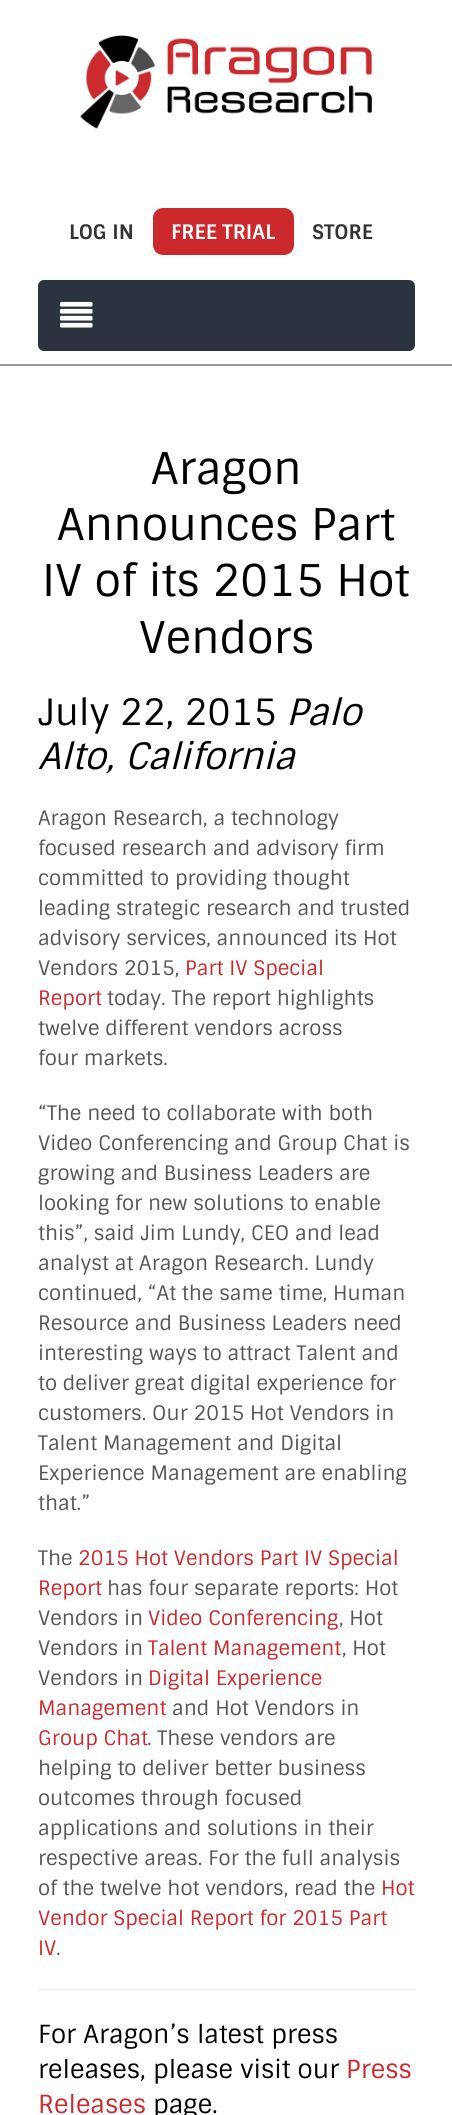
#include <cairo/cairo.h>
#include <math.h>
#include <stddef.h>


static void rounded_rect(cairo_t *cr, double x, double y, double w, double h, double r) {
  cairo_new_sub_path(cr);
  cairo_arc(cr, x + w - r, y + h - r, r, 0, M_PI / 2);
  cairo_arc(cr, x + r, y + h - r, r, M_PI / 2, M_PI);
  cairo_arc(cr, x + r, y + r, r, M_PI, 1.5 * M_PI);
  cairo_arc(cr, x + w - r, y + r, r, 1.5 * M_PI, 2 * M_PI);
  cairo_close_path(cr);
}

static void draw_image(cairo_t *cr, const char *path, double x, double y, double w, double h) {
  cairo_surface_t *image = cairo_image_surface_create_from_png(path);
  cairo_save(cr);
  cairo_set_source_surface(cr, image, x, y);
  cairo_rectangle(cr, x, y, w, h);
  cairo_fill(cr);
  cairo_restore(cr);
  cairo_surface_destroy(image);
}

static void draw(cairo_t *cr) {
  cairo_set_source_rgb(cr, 1, 1, 1);
  cairo_paint(cr);
  cairo_set_source_rgb(cr, 153 / 255.0, 153 / 255.0, 153 / 255.0);
  cairo_rectangle(cr, 0, 364, 452, 2);
  cairo_fill(cr);
  draw_image(cr, "images/1.png", 80, 35, 292, 94);
  cairo_set_source_rgb(cr, 204 / 255.0, 41 / 255.0, 44 / 255.0);
  rounded_rect(cr, 153, 208, 141, 47, 10);
  cairo_fill(cr);
  cairo_set_source_rgb(cr, 43 / 255.0, 51 / 255.0, 62 / 255.0);
  rounded_rect(cr, 38, 280, 377, 71, 6);
  cairo_fill(cr);
  draw_image(cr, "images/2.png", 60, 301, 33, 27);
  cairo_set_source_rgb(cr, 238 / 255.0, 238 / 255.0, 238 / 255.0);
  cairo_rectangle(cr, 38, 1989, 377, 1);
  cairo_fill(cr);
  cairo_select_font_face(cr, "Sintony", CAIRO_FONT_SLANT_NORMAL, CAIRO_FONT_WEIGHT_BOLD);
  cairo_set_font_size(cr, 20);
  cairo_set_source_rgb(cr, 51 / 255.0, 51 / 255.0, 51 / 255.0);
  cairo_move_to(cr, 69, 239);
  cairo_show_text(cr, "LOG IN");
  cairo_set_source_rgb(cr, 1, 1, 1);
  cairo_move_to(cr, 171, 239);
  cairo_show_text(cr, "FREE TRIAL");
  cairo_set_source_rgb(cr, 51 / 255.0, 51 / 255.0, 51 / 255.0);
  cairo_move_to(cr, 312, 239);
  cairo_show_text(cr, "STORE");
  cairo_select_font_face(cr, "Sintony", CAIRO_FONT_SLANT_NORMAL, CAIRO_FONT_WEIGHT_NORMAL);
  cairo_set_font_size(cr, 43.75);
  cairo_set_source_rgb(cr, 0, 0, 0);
  cairo_move_to(cr, 151, 484);
  cairo_show_text(cr, "Aragon");
  cairo_move_to(cr, 57, 540);
  cairo_show_text(cr, "Announces Part");
  cairo_move_to(cr, 42, 596);
  cairo_show_text(cr, "IV of its 2015 Hot");
  cairo_move_to(cr, 139, 653);
  cairo_show_text(cr, "Vendors");
  cairo_set_font_size(cr, 36.25);
  cairo_move_to(cr, 38, 725);
  cairo_show_text(cr, "July 22, 2015");
  cairo_select_font_face(cr, "Sintony", CAIRO_FONT_SLANT_ITALIC, CAIRO_FONT_WEIGHT_NORMAL);
  cairo_move_to(cr, 286, 725);
  cairo_show_text(cr, "Palo");
  cairo_move_to(cr, 38, 769);
  cairo_show_text(cr, "Alto, California");
  cairo_select_font_face(cr, "Sintony", CAIRO_FONT_SLANT_NORMAL, CAIRO_FONT_WEIGHT_NORMAL);
  cairo_set_font_size(cr, 20);
  cairo_set_source_rgb(cr, 86 / 255.0, 83 / 255.0, 83 / 255.0);
  cairo_move_to(cr, 38, 825);
  cairo_show_text(cr, "Aragon Research, a technology");
  cairo_move_to(cr, 38, 855);
  cairo_show_text(cr, "focused research and advisory firm");
  cairo_move_to(cr, 38, 885);
  cairo_show_text(cr, "committed to providing thought");
  cairo_move_to(cr, 38, 915);
  cairo_show_text(cr, "leading strategic research and trusted");
  cairo_move_to(cr, 38, 945);
  cairo_show_text(cr, "advisory services, announced its Hot");
  cairo_move_to(cr, 38, 975);
  cairo_show_text(cr, "Vendors 2015,");
  cairo_set_source_rgb(cr, 203 / 255.0, 41 / 255.0, 43 / 255.0);
  cairo_move_to(cr, 185, 975);
  cairo_show_text(cr, "Part IV Special");
  cairo_move_to(cr, 38, 1005);
  cairo_show_text(cr, "Report");
  cairo_set_source_rgb(cr, 86 / 255.0, 83 / 255.0, 83 / 255.0);
  cairo_move_to(cr, 107, 1005);
  cairo_show_text(cr, "today. The report highlights");
  cairo_move_to(cr, 38, 1035);
  cairo_show_text(cr, "twelve different vendors across");
  cairo_move_to(cr, 38, 1065);
  cairo_show_text(cr, "four markets.");
  cairo_move_to(cr, 38, 1120);
  cairo_show_text(cr, "“The need to collaborate with both");
  cairo_move_to(cr, 38, 1150);
  cairo_show_text(cr, "Video Conferencing and Group Chat is");
  cairo_move_to(cr, 38, 1180);
  cairo_show_text(cr, "growing and Business Leaders are");
  cairo_move_to(cr, 38, 1210);
  cairo_show_text(cr, "looking for new solutions to enable");
  cairo_move_to(cr, 38, 1240);
  cairo_show_text(cr, "this”, said Jim Lundy, CEO and lead");
  cairo_move_to(cr, 38, 1270);
  cairo_show_text(cr, "analyst at Aragon Research. Lundy");
  cairo_move_to(cr, 38, 1300);
  cairo_show_text(cr, "continued, “At the same time, Human");
  cairo_move_to(cr, 38, 1330);
  cairo_show_text(cr, "Resource and Business Leaders need");
  cairo_move_to(cr, 38, 1360);
  cairo_show_text(cr, "interesting ways to attract Talent and");
  cairo_move_to(cr, 38, 1390);
  cairo_show_text(cr, "to deliver great digital experience for");
  cairo_move_to(cr, 38, 1420);
  cairo_show_text(cr, "customers. Our 2015 Hot Vendors in");
  cairo_move_to(cr, 38, 1450);
  cairo_show_text(cr, "Talent Management and Digital");
  cairo_move_to(cr, 38, 1480);
  cairo_show_text(cr, "Experience Management are enabling");
  cairo_move_to(cr, 38, 1510);
  cairo_show_text(cr, "that.”");
  cairo_move_to(cr, 38, 1565);
  cairo_show_text(cr, "The");
  cairo_set_source_rgb(cr, 203 / 255.0, 41 / 255.0, 43 / 255.0);
  cairo_move_to(cr, 78, 1565);
  cairo_show_text(cr, "2015 Hot Vendors Part IV Special");
  cairo_move_to(cr, 38, 1595);
  cairo_show_text(cr, "Report");
  cairo_set_source_rgb(cr, 86 / 255.0, 83 / 255.0, 83 / 255.0);
  cairo_move_to(cr, 107, 1595);
  cairo_show_text(cr, "has four separate reports: Hot");
  cairo_move_to(cr, 38, 1625);
  cairo_show_text(cr, "Vendors in");
  cairo_set_source_rgb(cr, 203 / 255.0, 41 / 255.0, 43 / 255.0);
  cairo_move_to(cr, 148, 1625);
  cairo_show_text(cr, "Video Conferencing");
  cairo_set_source_rgb(cr, 86 / 255.0, 83 / 255.0, 83 / 255.0);
  cairo_move_to(cr, 339, 1625);
  cairo_show_text(cr, ", Hot");
  cairo_move_to(cr, 38, 1655);
  cairo_show_text(cr, "Vendors in");
  cairo_set_source_rgb(cr, 203 / 255.0, 41 / 255.0, 43 / 255.0);
  cairo_move_to(cr, 148, 1655);
  cairo_show_text(cr, "Talent Management");
  cairo_set_source_rgb(cr, 86 / 255.0, 83 / 255.0, 83 / 255.0);
  cairo_move_to(cr, 342, 1655);
  cairo_show_text(cr, ", Hot");
  cairo_move_to(cr, 38, 1685);
  cairo_show_text(cr, "Vendors in");
  cairo_set_source_rgb(cr, 203 / 255.0, 41 / 255.0, 43 / 255.0);
  cairo_move_to(cr, 148, 1685);
  cairo_show_text(cr, "Digital Experience");
  cairo_move_to(cr, 38, 1715);
  cairo_show_text(cr, "Management");
  cairo_set_source_rgb(cr, 86 / 255.0, 83 / 255.0, 83 / 255.0);
  cairo_move_to(cr, 172, 1715);
  cairo_show_text(cr, "and Hot Vendors in");
  cairo_set_source_rgb(cr, 203 / 255.0, 41 / 255.0, 43 / 255.0);
  cairo_move_to(cr, 38, 1745);
  cairo_show_text(cr, "Group Chat");
  cairo_set_source_rgb(cr, 86 / 255.0, 83 / 255.0, 83 / 255.0);
  cairo_move_to(cr, 147, 1745);
  cairo_show_text(cr, ". These vendors are");
  cairo_move_to(cr, 38, 1775);
  cairo_show_text(cr, "helping to deliver better business");
  cairo_move_to(cr, 38, 1805);
  cairo_show_text(cr, "outcomes through focused");
  cairo_move_to(cr, 38, 1835);
  cairo_show_text(cr, "applications and solutions in their");
  cairo_move_to(cr, 38, 1865);
  cairo_show_text(cr, "respective areas. For the full analysis");
  cairo_move_to(cr, 38, 1895);
  cairo_show_text(cr, "of the twelve hot vendors, read the");
  cairo_set_source_rgb(cr, 203 / 255.0, 41 / 255.0, 43 / 255.0);
  cairo_move_to(cr, 381, 1895);
  cairo_show_text(cr, "Hot");
  cairo_move_to(cr, 38, 1925);
  cairo_show_text(cr, "Vendor Special Report for 2015 Part");
  cairo_move_to(cr, 38, 1955);
  cairo_show_text(cr, "IV");
  cairo_set_source_rgb(cr, 86 / 255.0, 83 / 255.0, 83 / 255.0);
  cairo_move_to(cr, 56, 1955);
  cairo_show_text(cr, ".");
  cairo_set_font_size(cr, 25);
  cairo_set_source_rgb(cr, 0, 0, 0);
  cairo_move_to(cr, 38, 2043);
  cairo_show_text(cr, "For Aragon’s latest press");
  cairo_move_to(cr, 38, 2078);
  cairo_show_text(cr, "releases, please visit our");
  cairo_set_source_rgb(cr, 203 / 255.0, 41 / 255.0, 43 / 255.0);
  cairo_move_to(cr, 346, 2078);
  cairo_show_text(cr, "Press");
  cairo_move_to(cr, 38, 2113);
  cairo_show_text(cr, "Releases");
  cairo_set_source_rgb(cr, 0, 0, 0);
  cairo_move_to(cr, 153, 2113);
  cairo_show_text(cr, "page.");
}

int main(void) {
  cairo_surface_t *surface = cairo_image_surface_create(CAIRO_FORMAT_RGB24, 452, 2115);
  cairo_t *cr = cairo_create(surface);
  cairo_font_options_t *options = cairo_font_options_create();
  cairo_font_options_set_hint_metrics(options, CAIRO_HINT_METRICS_OFF);
  cairo_font_options_set_hint_style(options, CAIRO_HINT_STYLE_NONE);
  cairo_set_font_options(cr, options);
  cairo_set_miter_limit(cr, 4);
  draw(cr);
  cairo_surface_write_to_png(surface, "out.png");
  cairo_font_options_destroy(options);
  cairo_destroy(cr);
  cairo_surface_destroy(surface);
  return 0;
}
